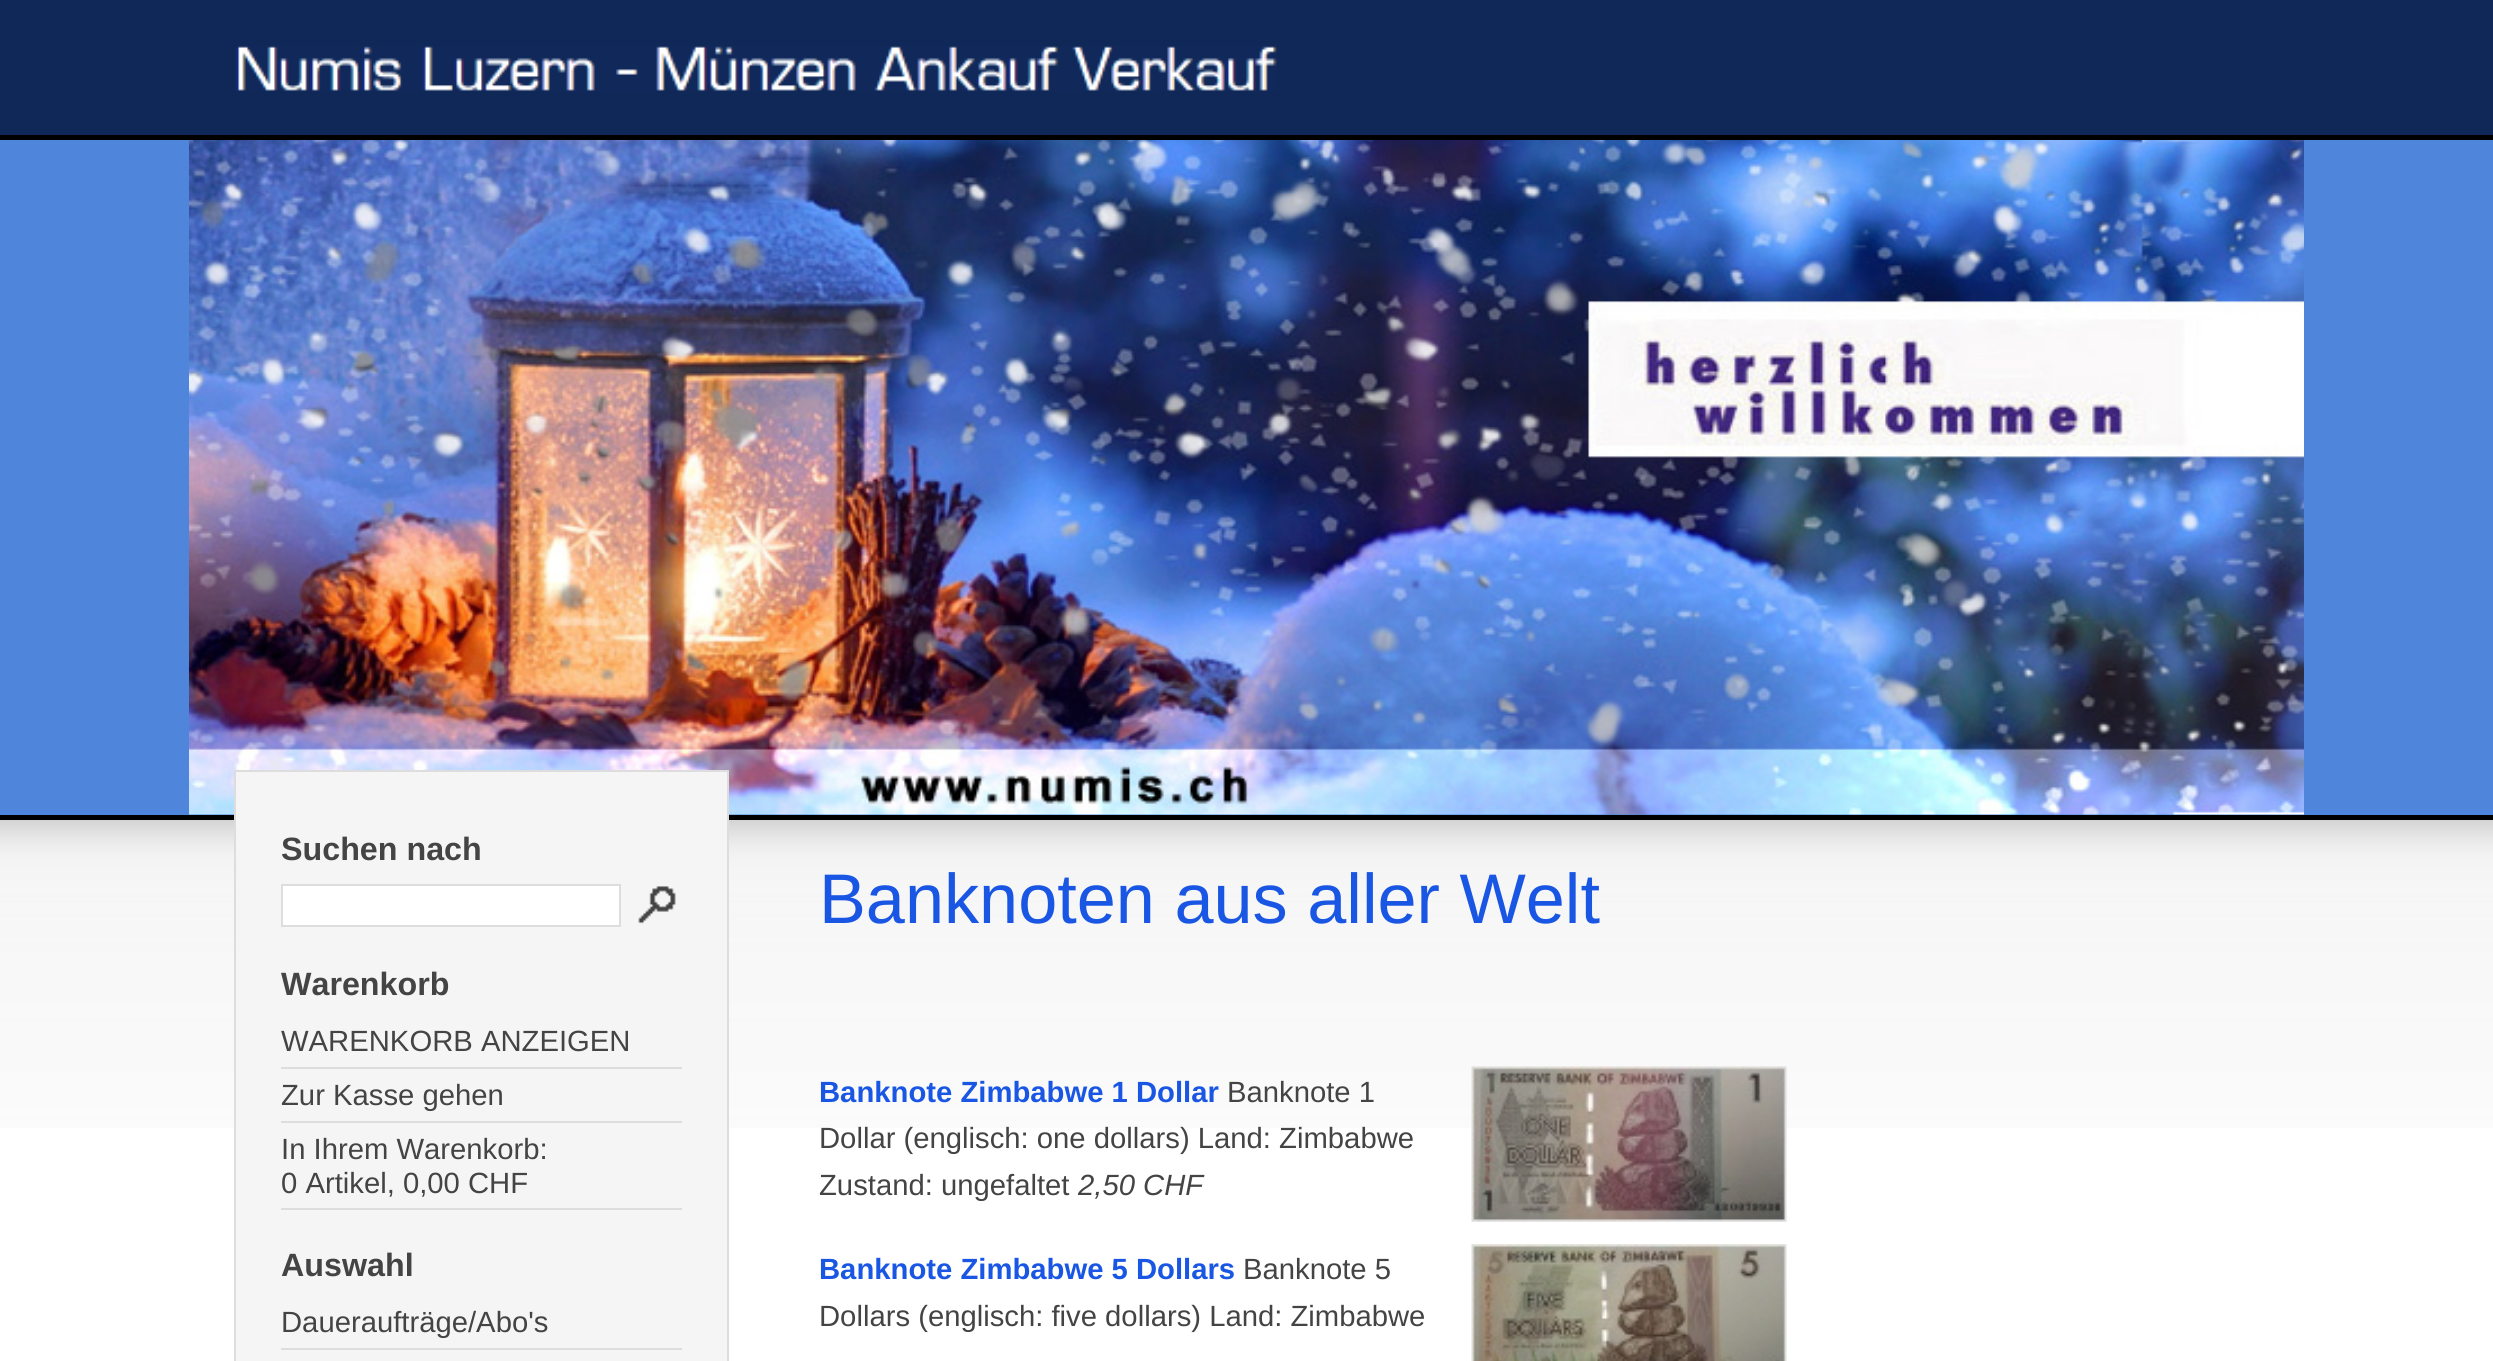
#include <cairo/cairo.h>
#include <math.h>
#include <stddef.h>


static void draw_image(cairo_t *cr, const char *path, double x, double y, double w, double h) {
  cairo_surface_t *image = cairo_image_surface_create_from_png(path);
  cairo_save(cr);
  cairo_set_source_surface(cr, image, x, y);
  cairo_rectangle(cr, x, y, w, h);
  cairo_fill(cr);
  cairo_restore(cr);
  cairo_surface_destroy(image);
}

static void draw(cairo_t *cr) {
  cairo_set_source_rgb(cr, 1, 1, 1);
  cairo_paint(cr);
  draw_image(cr, "images/1.png", 0, 820, 2493, 308);
  cairo_set_source_rgb(cr, 16 / 255.0, 40 / 255.0, 88 / 255.0);
  cairo_rectangle(cr, 0, 0, 2493, 135);
  cairo_fill(cr);
  draw_image(cr, "images/2.png", 235, 46, 1042, 45);
  cairo_set_source_rgb(cr, 79 / 255.0, 133 / 255.0, 219 / 255.0);
  cairo_rectangle(cr, 0, 140, 2493, 675);
  cairo_fill(cr);
  draw_image(cr, "images/3.png", 189, 140, 2115, 675);
  cairo_set_source_rgb(cr, 1 / 255.0, 0, 0);
  cairo_rectangle(cr, 0, 135, 2493, 5);
  cairo_fill(cr);
  cairo_rectangle(cr, 0, 815, 2493, 5);
  cairo_fill(cr);
  cairo_set_source_rgb(cr, 245 / 255.0, 245 / 255.0, 245 / 255.0);
  cairo_rectangle(cr, 235, 771, 493, 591);
  cairo_fill_preserve(cr);
  cairo_set_source_rgb(cr, 221 / 255.0, 221 / 255.0, 221 / 255.0);
  cairo_stroke(cr);
  cairo_set_source_rgb(cr, 1, 1, 1);
  cairo_rectangle(cr, 282, 885, 338, 41);
  cairo_fill_preserve(cr);
  cairo_set_source_rgb(cr, 221 / 255.0, 221 / 255.0, 221 / 255.0);
  cairo_stroke(cr);
  draw_image(cr, "images/4.png", 638, 886, 38, 38);
  cairo_rectangle(cr, 281, 1067, 401, 2);
  cairo_fill(cr);
  cairo_rectangle(cr, 281, 1121, 401, 2);
  cairo_fill(cr);
  cairo_rectangle(cr, 281, 1208, 401, 2);
  cairo_fill(cr);
  cairo_rectangle(cr, 281, 1348, 401, 2);
  cairo_fill(cr);
  draw_image(cr, "images/5.png", 1471, 1066, 316, 156);
  draw_image(cr, "images/6.png", 1471, 1244, 316, 117);
  cairo_select_font_face(cr, "Liberation Sans", CAIRO_FONT_SLANT_NORMAL, CAIRO_FONT_WEIGHT_BOLD);
  cairo_set_font_size(cr, 32.25);
  cairo_set_source_rgb(cr, 68 / 255.0, 68 / 255.0, 68 / 255.0);
  cairo_move_to(cr, 281, 860);
  cairo_show_text(cr, "Suchen nach");
  cairo_move_to(cr, 281, 995);
  cairo_show_text(cr, "Warenkorb");
  cairo_select_font_face(cr, "Liberation Sans", CAIRO_FONT_SLANT_NORMAL, CAIRO_FONT_WEIGHT_NORMAL);
  cairo_set_font_size(cr, 29.25);
  cairo_move_to(cr, 281, 1051);
  cairo_show_text(cr, "WARENKORB ANZEIGEN");
  cairo_move_to(cr, 281, 1105);
  cairo_show_text(cr, "Zur Kasse gehen");
  cairo_move_to(cr, 281, 1159);
  cairo_show_text(cr, "In Ihrem Warenkorb:");
  cairo_move_to(cr, 281, 1193);
  cairo_show_text(cr, "0 Artikel, 0,00 CHF");
  cairo_select_font_face(cr, "Liberation Sans", CAIRO_FONT_SLANT_NORMAL, CAIRO_FONT_WEIGHT_BOLD);
  cairo_set_font_size(cr, 32.25);
  cairo_move_to(cr, 281, 1276);
  cairo_show_text(cr, "Auswahl");
  cairo_select_font_face(cr, "Liberation Sans", CAIRO_FONT_SLANT_NORMAL, CAIRO_FONT_WEIGHT_NORMAL);
  cairo_set_font_size(cr, 29.25);
  cairo_move_to(cr, 281, 1332);
  cairo_show_text(cr, "Daueraufträge/Abo's");
  cairo_set_font_size(cr, 70.25);
  cairo_set_source_rgb(cr, 26 / 255.0, 86 / 255.0, 228 / 255.0);
  cairo_move_to(cr, 819, 923);
  cairo_show_text(cr, "Banknoten aus aller Welt");
  cairo_select_font_face(cr, "Liberation Sans", CAIRO_FONT_SLANT_NORMAL, CAIRO_FONT_WEIGHT_BOLD);
  cairo_set_font_size(cr, 29.25);
  cairo_move_to(cr, 819, 1102);
  cairo_show_text(cr, "Banknote Zimbabwe 1 Dollar");
  cairo_select_font_face(cr, "Liberation Sans", CAIRO_FONT_SLANT_NORMAL, CAIRO_FONT_WEIGHT_NORMAL);
  cairo_set_source_rgb(cr, 68 / 255.0, 68 / 255.0, 68 / 255.0);
  cairo_move_to(cr, 1227, 1102);
  cairo_show_text(cr, "Banknote 1");
  cairo_move_to(cr, 819, 1148);
  cairo_show_text(cr, "Dollar (englisch: one dollars) Land: Zimbabwe");
  cairo_move_to(cr, 819, 1195);
  cairo_show_text(cr, "Zustand: ungefaltet");
  cairo_select_font_face(cr, "Liberation Sans", CAIRO_FONT_SLANT_ITALIC, CAIRO_FONT_WEIGHT_NORMAL);
  cairo_move_to(cr, 1078, 1195);
  cairo_show_text(cr, "2,50 CHF");
  cairo_select_font_face(cr, "Liberation Sans", CAIRO_FONT_SLANT_NORMAL, CAIRO_FONT_WEIGHT_BOLD);
  cairo_set_source_rgb(cr, 26 / 255.0, 86 / 255.0, 228 / 255.0);
  cairo_move_to(cr, 819, 1279);
  cairo_show_text(cr, "Banknote Zimbabwe 5 Dollars");
  cairo_select_font_face(cr, "Liberation Sans", CAIRO_FONT_SLANT_NORMAL, CAIRO_FONT_WEIGHT_NORMAL);
  cairo_set_source_rgb(cr, 68 / 255.0, 68 / 255.0, 68 / 255.0);
  cairo_move_to(cr, 1243, 1279);
  cairo_show_text(cr, "Banknote 5");
  cairo_move_to(cr, 819, 1326);
  cairo_show_text(cr, "Dollars (englisch: five dollars) Land: Zimbabwe");
}

int main(void) {
  cairo_surface_t *surface = cairo_image_surface_create(CAIRO_FORMAT_RGB24, 2493, 1361);
  cairo_t *cr = cairo_create(surface);
  cairo_font_options_t *options = cairo_font_options_create();
  cairo_font_options_set_hint_metrics(options, CAIRO_HINT_METRICS_OFF);
  cairo_font_options_set_hint_style(options, CAIRO_HINT_STYLE_NONE);
  cairo_set_font_options(cr, options);
  cairo_set_miter_limit(cr, 4);
  draw(cr);
  cairo_surface_write_to_png(surface, "out.png");
  cairo_font_options_destroy(options);
  cairo_destroy(cr);
  cairo_surface_destroy(surface);
  return 0;
}
